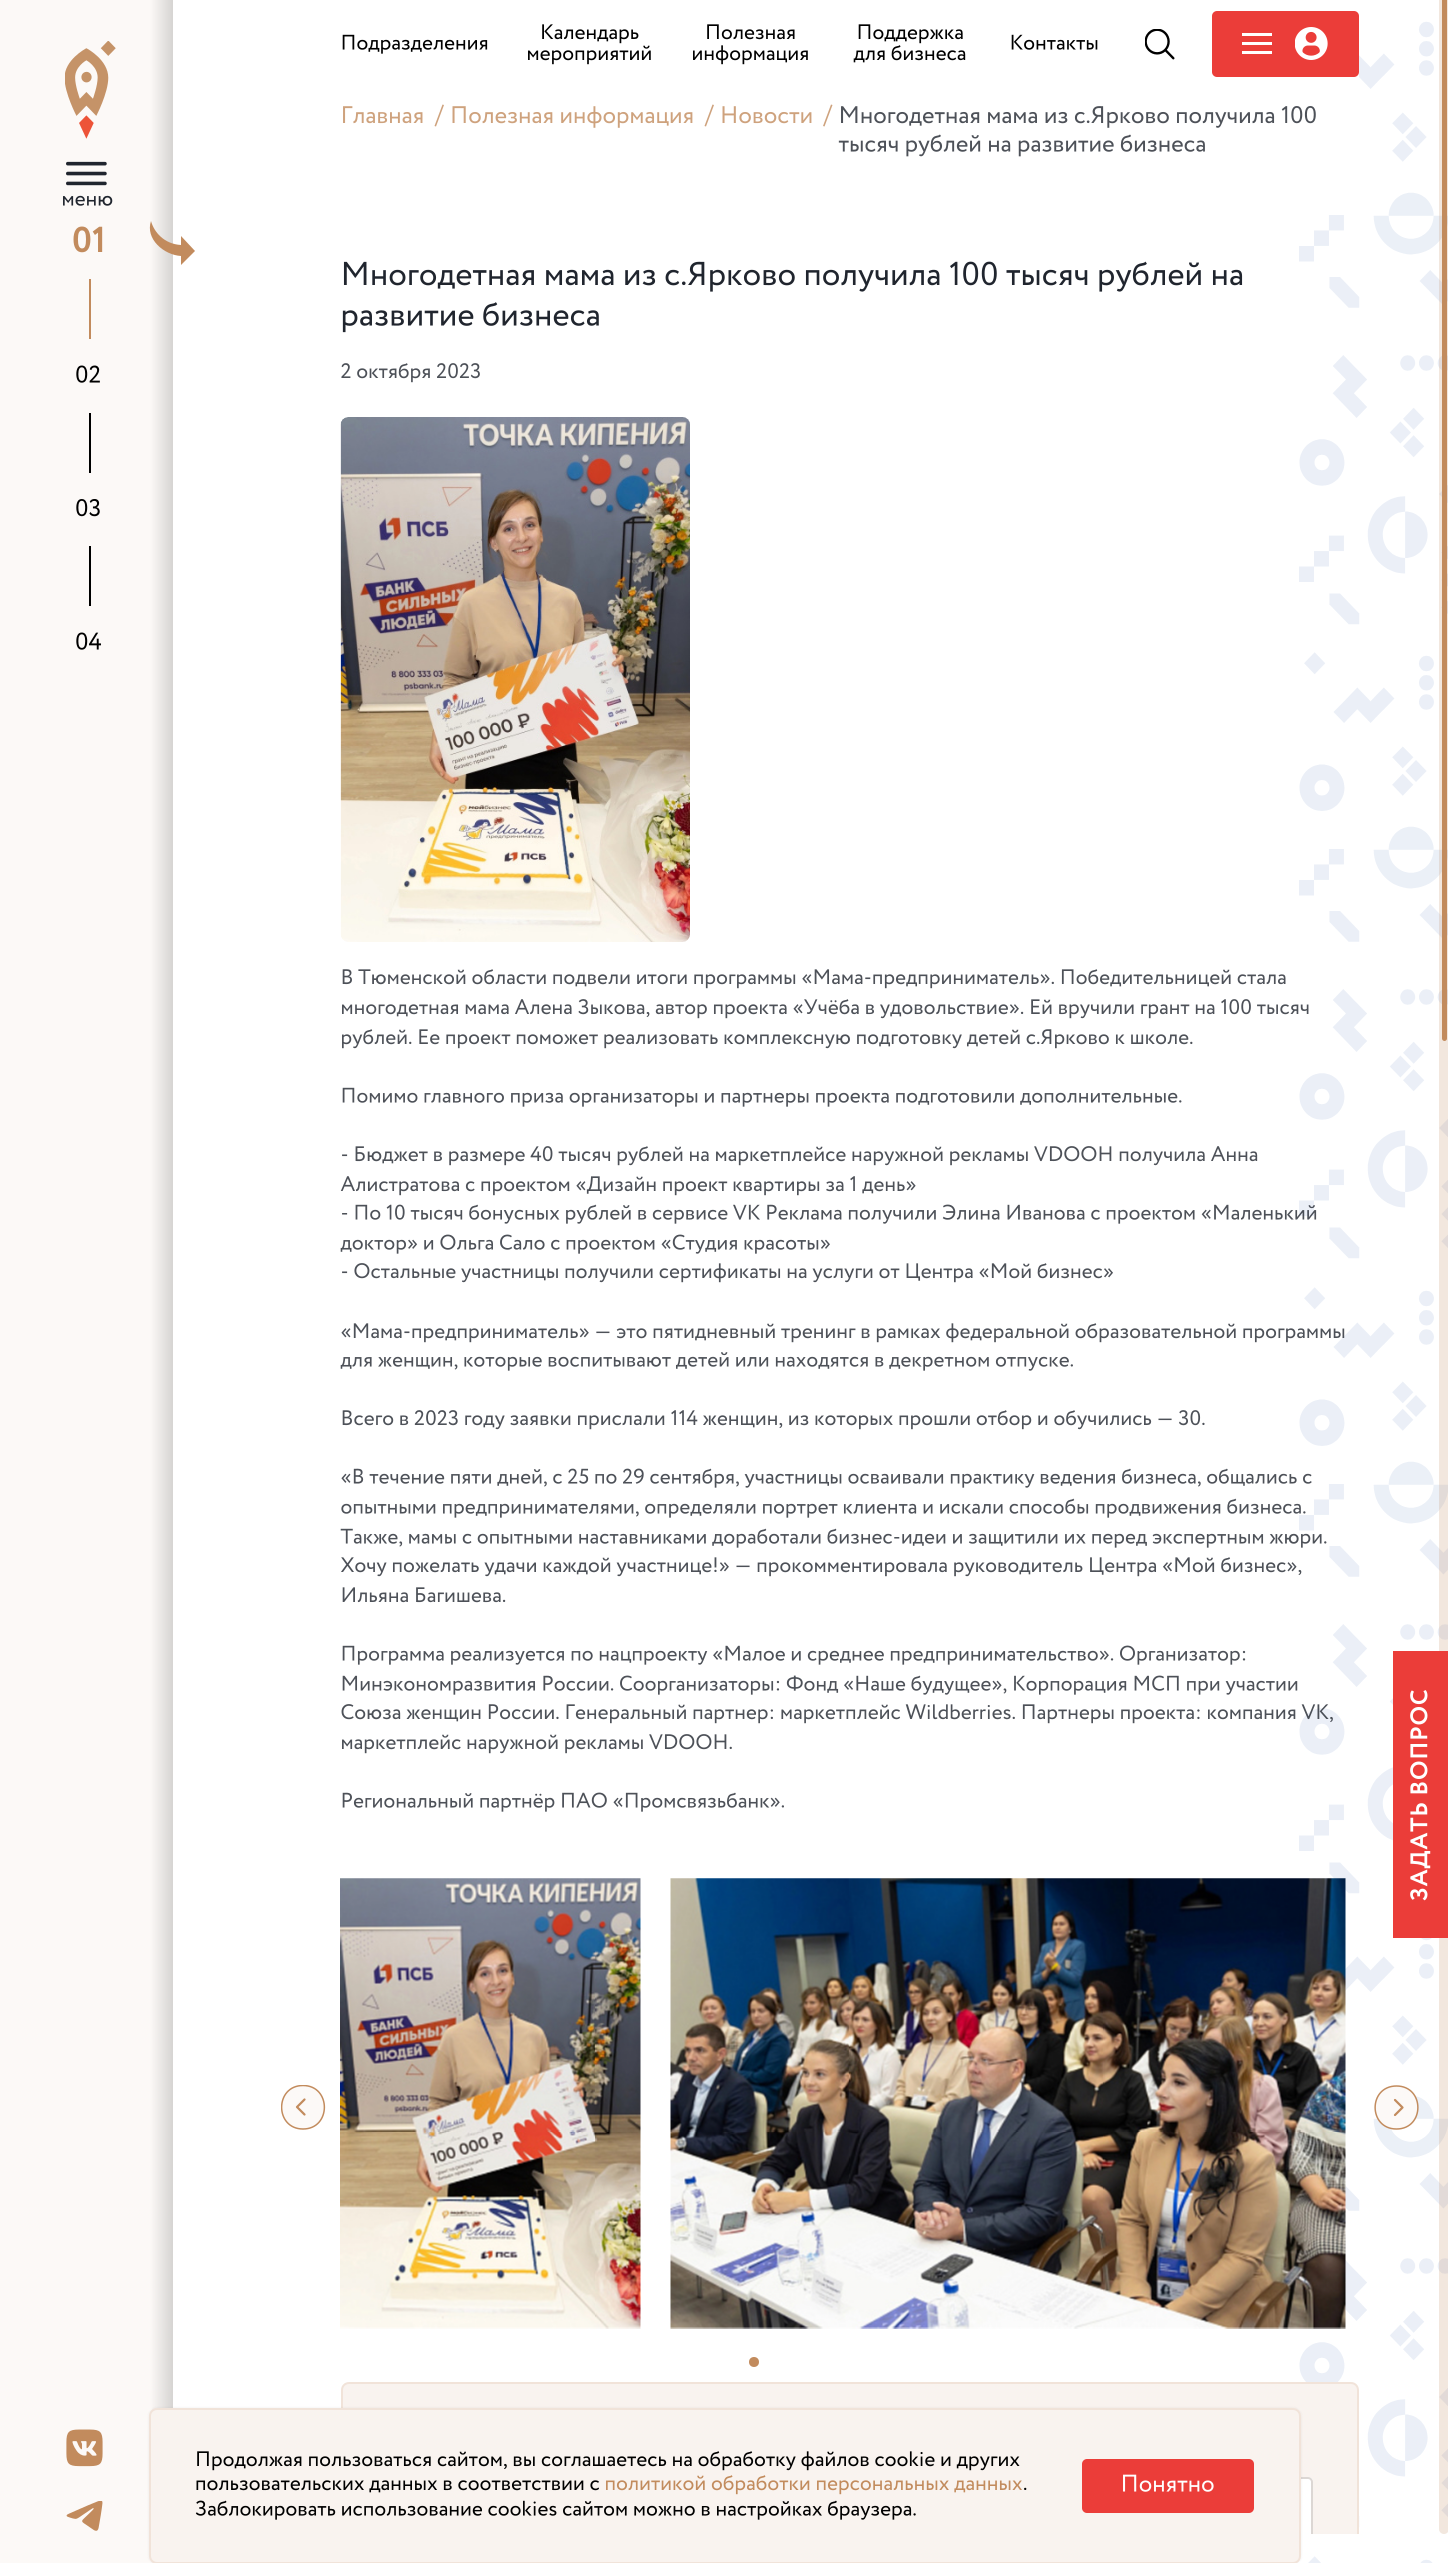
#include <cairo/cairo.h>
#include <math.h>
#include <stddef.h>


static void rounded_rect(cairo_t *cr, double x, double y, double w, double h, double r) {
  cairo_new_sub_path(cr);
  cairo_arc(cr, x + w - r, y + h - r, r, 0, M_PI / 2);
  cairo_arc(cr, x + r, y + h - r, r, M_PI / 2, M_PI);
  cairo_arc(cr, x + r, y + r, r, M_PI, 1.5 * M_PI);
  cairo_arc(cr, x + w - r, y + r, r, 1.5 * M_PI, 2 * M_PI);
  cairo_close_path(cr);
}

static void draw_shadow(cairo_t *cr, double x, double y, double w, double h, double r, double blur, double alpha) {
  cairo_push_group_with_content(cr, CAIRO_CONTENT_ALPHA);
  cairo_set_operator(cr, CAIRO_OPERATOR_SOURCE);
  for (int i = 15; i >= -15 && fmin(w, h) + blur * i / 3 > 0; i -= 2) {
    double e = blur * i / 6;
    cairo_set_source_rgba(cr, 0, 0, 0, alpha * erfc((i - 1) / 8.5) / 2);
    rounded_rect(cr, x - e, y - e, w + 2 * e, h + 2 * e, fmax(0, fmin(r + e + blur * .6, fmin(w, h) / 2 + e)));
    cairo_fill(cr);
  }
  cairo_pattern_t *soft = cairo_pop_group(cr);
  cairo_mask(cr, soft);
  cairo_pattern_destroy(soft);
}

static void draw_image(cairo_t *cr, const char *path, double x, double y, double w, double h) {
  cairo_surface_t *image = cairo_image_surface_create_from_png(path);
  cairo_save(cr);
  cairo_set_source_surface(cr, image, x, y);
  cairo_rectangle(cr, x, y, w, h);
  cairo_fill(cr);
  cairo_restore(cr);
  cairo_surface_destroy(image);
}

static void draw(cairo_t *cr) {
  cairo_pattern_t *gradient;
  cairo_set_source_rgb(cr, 1, 1, 1);
  cairo_paint(cr);
  cairo_set_source_rgb(cr, 252 / 255.0, 249 / 255.0, 247 / 255.0);
  cairo_rectangle(cr, 0, 0, 150, 2563);
  cairo_fill(cr);
  gradient = cairo_pattern_create_linear(150, 1282, 173, 1282);
  cairo_pattern_add_color_stop_rgba(gradient, 0, 252 / 255.0, 249 / 255.0, 247 / 255.0, 1);
  cairo_pattern_add_color_stop_rgba(gradient, 1, 214 / 255.0, 212 / 255.0, 210 / 255.0, 1);
  cairo_set_source(cr, gradient);
  cairo_pattern_destroy(gradient);
  cairo_rectangle(cr, 150, 0, 23, 2563);
  cairo_fill(cr);
  draw_image(cr, "images/47.png", 1299, 21, 149, 2542);
  cairo_set_source_rgb(cr, 1, 1, 1);
  cairo_rectangle(cr, 1299, 21, 60, 156);
  cairo_fill(cr);
  draw_image(cr, "images/1.png", 342, 34, 146, 20);
  draw_image(cr, "images/2.png", 542, 24, 97, 20);
  draw_image(cr, "images/3.png", 528, 45, 123, 20);
  draw_image(cr, "images/4.png", 707, 24, 88, 16);
  draw_image(cr, "images/5.png", 693, 45, 115, 20);
  draw_image(cr, "images/6.png", 858, 24, 105, 20);
  draw_image(cr, "images/7.png", 853, 45, 113, 18);
  draw_image(cr, "images/8.png", 1011, 34, 87, 16);
  draw_image(cr, "images/9.png", 1145, 29, 30, 31);
  cairo_set_source_rgb(cr, 235 / 255.0, 61 / 255.0, 57 / 255.0);
  rounded_rect(cr, 1212, 11, 147, 66, 5);
  cairo_fill(cr);
  cairo_set_source_rgb(cr, 1, 1, 1);
  cairo_rectangle(cr, 1242, 33, 30, 3);
  cairo_fill(cr);
  cairo_rectangle(cr, 1242, 42, 30, 3);
  cairo_fill(cr);
  cairo_rectangle(cr, 1242, 51, 30, 3);
  cairo_fill(cr);
  draw_image(cr, "images/10.png", 1295, 27, 33, 33);
  draw_image(cr, "images/11.png", 343, 106, 80, 18);
  cairo_set_source_rgb(cr, 206 / 255.0, 162 / 255.0, 125 / 255.0);
  cairo_new_path(cr);
  cairo_move_to(cr, 436, 126.5);
  cairo_line_to(cr, 434.5, 126);
  cairo_line_to(cr, 442.5, 104.5);
  cairo_line_to(cr, 444, 105);
  cairo_close_path(cr);
  cairo_fill(cr);
  draw_image(cr, "images/12.png", 452, 106, 241, 22);
  cairo_new_path(cr);
  cairo_move_to(cr, 706, 126.5);
  cairo_line_to(cr, 704.5, 126);
  cairo_line_to(cr, 712.5, 104.5);
  cairo_line_to(cr, 714, 105);
  cairo_close_path(cr);
  cairo_fill(cr);
  draw_image(cr, "images/13.png", 722, 106, 90, 18);
  cairo_new_path(cr);
  cairo_move_to(cr, 824.5, 126.5);
  cairo_line_to(cr, 823, 126);
  cairo_line_to(cr, 831, 104.5);
  cairo_line_to(cr, 832.5, 105);
  cairo_close_path(cr);
  cairo_fill(cr);
  draw_image(cr, "images/14.png", 841, 106, 475, 22);
  draw_image(cr, "images/15.png", 838, 134, 367, 23);
  cairo_set_source_rgba(cr, 194 / 255.0, 139 / 255.0, 93 / 255.0, 0.2);
  rounded_rect(cr, 1439, -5, 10, 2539, 5);
  cairo_fill(cr);
  cairo_set_source_rgb(cr, 194 / 255.0, 139 / 255.0, 93 / 255.0);
  rounded_rect(cr, 1442, -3, 5, 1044, 2.5);
  cairo_fill(cr);
  draw_image(cr, "images/16.png", 343, 261, 900, 31);
  draw_image(cr, "images/17.png", 342, 302, 257, 31);
  draw_image(cr, "images/18.png", 341, 363, 139, 20);
  draw_image(cr, "images/19.png", 340, 417, 350, 525);
  draw_image(cr, "images/20.png", 342, 969, 944, 20);
  draw_image(cr, "images/21.png", 342, 999, 967, 20);
  draw_image(cr, "images/22.png", 342, 1029, 851, 20);
  draw_image(cr, "images/23.png", 342, 1087, 840, 20);
  draw_image(cr, "images/24.png", 342, 1146, 916, 20);
  draw_image(cr, "images/25.png", 340, 1176, 576, 20);
  draw_image(cr, "images/26.png", 342, 1204, 975, 20);
  draw_image(cr, "images/27.png", 340, 1234, 490, 20);
  draw_image(cr, "images/28.png", 342, 1263, 771, 20);
  draw_image(cr, "images/29.png", 341, 1323, 1004, 20);
  draw_image(cr, "images/30.png", 340, 1352, 733, 19);
  draw_image(cr, "images/31.png", 342, 1410, 863, 20);
  draw_image(cr, "images/32.png", 341, 1468, 971, 20);
  draw_image(cr, "images/33.png", 341, 1498, 965, 20);
  draw_image(cr, "images/34.png", 340, 1528, 987, 20);
  draw_image(cr, "images/35.png", 341, 1557, 961, 20);
  draw_image(cr, "images/36.png", 342, 1587, 164, 16);
  draw_image(cr, "images/37.png", 342, 1645, 904, 20);
  draw_image(cr, "images/38.png", 342, 1675, 956, 20);
  draw_image(cr, "images/39.png", 341, 1704, 992, 20);
  draw_image(cr, "images/40.png", 342, 1734, 390, 20);
  draw_image(cr, "images/41.png", 342, 1792, 442, 20);
  cairo_set_source_rgb(cr, 252 / 255.0, 249 / 255.0, 247 / 255.0);
  cairo_new_path(cr);
  cairo_move_to(cr, 303, 2129);
  cairo_curve_to(cr, 332, 2129, 332, 2085, 303, 2085);
  cairo_curve_to(cr, 274, 2085, 274, 2129, 303, 2129);
  cairo_close_path(cr);
  cairo_fill(cr);
  cairo_save(cr);
  cairo_rectangle(cr, 281, 2085, 45, 45);
  cairo_clip(cr);
  cairo_new_path(cr);
  cairo_move_to(cr, 303, 2129);
  cairo_curve_to(cr, 331.5, 2129, 331.5, 2085.5, 303, 2085.5);
  cairo_curve_to(cr, 274.5, 2085.5, 274.5, 2129, 303, 2129);
  cairo_close_path(cr);
  cairo_set_source_rgb(cr, 194 / 255.0, 139 / 255.0, 93 / 255.0);
  cairo_set_line_width(cr, 1.5);
  cairo_stroke(cr);
  cairo_restore(cr);
  cairo_new_path(cr);
  cairo_move_to(cr, 304.5, 2114.5);
  cairo_line_to(cr, 297, 2107);
  cairo_line_to(cr, 304.5, 2099.5);
  cairo_set_source_rgb(cr, 194 / 255.0, 139 / 255.0, 93 / 255.0);
  cairo_set_line_width(cr, 2.2);
  cairo_set_line_cap(cr, CAIRO_LINE_CAP_ROUND);
  cairo_set_line_join(cr, CAIRO_LINE_JOIN_ROUND);
  cairo_stroke(cr);
  draw_image(cr, "images/42.png", 340, 1878, 301, 451);
  draw_image(cr, "images/43.png", 670, 1878, 676, 451);
  cairo_set_source_rgb(cr, 252 / 255.0, 249 / 255.0, 247 / 255.0);
  cairo_new_path(cr);
  cairo_move_to(cr, 1396, 2086);
  cairo_curve_to(cr, 1368, 2086, 1368, 2129, 1396, 2129);
  cairo_curve_to(cr, 1425, 2129, 1425, 2086, 1396, 2086);
  cairo_close_path(cr);
  cairo_fill(cr);
  cairo_new_path(cr);
  cairo_move_to(cr, 1396.5, 2086);
  cairo_curve_to(cr, 1368, 2086, 1368, 2129, 1396.5, 2129);
  cairo_curve_to(cr, 1425, 2129, 1425, 2086, 1396.5, 2086);
  cairo_close_path(cr);
  cairo_set_source_rgb(cr, 194 / 255.0, 139 / 255.0, 93 / 255.0);
  cairo_set_line_width(cr, 1.5);
  cairo_set_line_cap(cr, CAIRO_LINE_CAP_BUTT);
  cairo_set_line_join(cr, CAIRO_LINE_JOIN_MITER);
  cairo_stroke(cr);
  cairo_new_path(cr);
  cairo_move_to(cr, 1395, 2100);
  cairo_line_to(cr, 1402.5, 2107.5);
  cairo_line_to(cr, 1395, 2115);
  cairo_set_line_width(cr, 2.2);
  cairo_set_line_cap(cr, CAIRO_LINE_CAP_ROUND);
  cairo_set_line_join(cr, CAIRO_LINE_JOIN_ROUND);
  cairo_stroke(cr);
  cairo_arc(cr, 754, 2362, 5, 0, 2 * M_PI);
  cairo_fill(cr);
  cairo_set_source_rgb(cr, 249 / 255.0, 243 / 255.0, 239 / 255.0);
  cairo_new_path(cr);
  cairo_move_to(cr, 349, 2382);
  cairo_line_to(cr, 1351, 2382);
  cairo_curve_to(cr, 1355.5, 2382, 1359, 2385.5, 1359, 2390);
  cairo_line_to(cr, 1359, 2534);
  cairo_line_to(cr, 341, 2534);
  cairo_line_to(cr, 341, 2390);
  cairo_curve_to(cr, 341, 2385.5, 344.5, 2382, 349, 2382);
  cairo_close_path(cr);
  cairo_fill(cr);
  cairo_save(cr);
  cairo_rectangle(cr, 173, 0, 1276, 2534);
  cairo_clip(cr);
  rounded_rect(cr, 342, 2383, 1016, 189, 7);
  cairo_set_source_rgba(cr, 194 / 255.0, 139 / 255.0, 93 / 255.0, 0.15);
  cairo_set_line_width(cr, 2);
  cairo_set_line_cap(cr, CAIRO_LINE_CAP_BUTT);
  cairo_set_line_join(cr, CAIRO_LINE_JOIN_MITER);
  cairo_stroke(cr);
  cairo_restore(cr);
  cairo_set_source_rgb(cr, 1, 1, 1);
  cairo_new_path(cr);
  cairo_move_to(cr, 865, 2477);
  cairo_line_to(cr, 1308, 2477);
  cairo_curve_to(cr, 1311, 2477, 1313, 2479, 1313, 2482);
  cairo_line_to(cr, 1313, 2534);
  cairo_line_to(cr, 860, 2534);
  cairo_line_to(cr, 860, 2482);
  cairo_curve_to(cr, 860, 2479, 862, 2477, 865, 2477);
  cairo_close_path(cr);
  cairo_fill(cr);
  cairo_save(cr);
  cairo_rectangle(cr, 173, 0, 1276, 2534);
  cairo_clip(cr);
  rounded_rect(cr, 861, 2478, 451, 64, 4);
  cairo_set_source_rgb(cr, 220 / 255.0, 215 / 255.0, 212 / 255.0);
  cairo_set_line_width(cr, 2);
  cairo_set_line_cap(cr, CAIRO_LINE_CAP_BUTT);
  cairo_set_line_join(cr, CAIRO_LINE_JOIN_MITER);
  cairo_stroke(cr);
  cairo_restore(cr);
  draw_image(cr, "images/44.png", 65, 41, 51, 98);
  draw_image(cr, "images/45.png", 66, 161, 41, 25);
  draw_image(cr, "images/46.png", 63, 195, 50, 11);
  cairo_set_source_rgb(cr, 194 / 255.0, 139 / 255.0, 93 / 255.0);
  cairo_new_path(cr);
  cairo_move_to(cr, 181, 256);
  cairo_line_to(cr, 181, 265);
  cairo_line_to(cr, 195, 251);
  cairo_line_to(cr, 181, 236);
  cairo_line_to(cr, 181, 245);
  cairo_curve_to(cr, 164, 244, 154, 232, 151, 221);
  cairo_curve_to(cr, 145, 239, 164, 255, 181, 256);
  cairo_close_path(cr);
  cairo_fill(cr);
  draw_image(cr, "images/48.png", 73, 226, 30, 27);
  cairo_rectangle(cr, 89, 279, 2, 60);
  cairo_fill(cr);
  draw_image(cr, "images/49.png", 76, 365, 24, 18);
  cairo_set_source_rgb(cr, 0, 0, 0);
  cairo_rectangle(cr, 89, 413, 2, 60);
  cairo_fill(cr);
  draw_image(cr, "images/50.png", 76, 499, 24, 18);
  cairo_rectangle(cr, 89, 546, 2, 60);
  cairo_fill(cr);
  draw_image(cr, "images/51.png", 76, 632, 25, 18);
  cairo_set_source_rgb(cr, 235 / 255.0, 61 / 255.0, 57 / 255.0);
  cairo_rectangle(cr, 1393, 1651, 55, 287);
  cairo_fill(cr);
  draw_image(cr, "images/52.png", 1410, 1690, 21, 211);
  draw_image(cr, "images/53.png", 66, 2429, 37, 38);
  draw_image(cr, "images/54.png", 66, 2501, 37, 30);
  cairo_set_source_rgb(cr, 0, 0, 0);
  draw_shadow(cr, 149, 2408, 1152, 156, 8, 1.5, 0.06);
  cairo_set_source_rgb(cr, 249 / 255.0, 243 / 255.0, 239 / 255.0);
  rounded_rect(cr, 149, 2408, 1152, 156, 8);
  cairo_fill(cr);
  rounded_rect(cr, 150, 2409, 1150, 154, 7);
  cairo_set_source_rgba(cr, 194 / 255.0, 139 / 255.0, 93 / 255.0, 0.15);
  cairo_set_line_width(cr, 2);
  cairo_set_line_cap(cr, CAIRO_LINE_CAP_BUTT);
  cairo_set_line_join(cr, CAIRO_LINE_JOIN_MITER);
  cairo_stroke(cr);
  draw_image(cr, "images/55.png", 197, 2451, 823, 20);
  draw_image(cr, "images/56.png", 196, 2480, 403, 13);
  draw_image(cr, "images/57.png", 606, 2475, 416, 20);
  draw_image(cr, "images/58.png", 1024, 2487, 3, 3);
  draw_image(cr, "images/59.png", 195, 2500, 721, 20);
  cairo_set_source_rgb(cr, 235 / 255.0, 61 / 255.0, 57 / 255.0);
  rounded_rect(cr, 1082, 2459, 172, 54, 5);
  cairo_fill(cr);
  draw_image(cr, "images/60.png", 1123, 2474, 91, 18);
}

int main(void) {
  cairo_surface_t *surface = cairo_image_surface_create(CAIRO_FORMAT_RGB24, 1448, 2563);
  cairo_t *cr = cairo_create(surface);
  cairo_font_options_t *options = cairo_font_options_create();
  cairo_font_options_set_hint_metrics(options, CAIRO_HINT_METRICS_OFF);
  cairo_font_options_set_hint_style(options, CAIRO_HINT_STYLE_NONE);
  cairo_set_font_options(cr, options);
  cairo_set_miter_limit(cr, 4);
  draw(cr);
  cairo_surface_write_to_png(surface, "out.png");
  cairo_font_options_destroy(options);
  cairo_destroy(cr);
  cairo_surface_destroy(surface);
  return 0;
}
